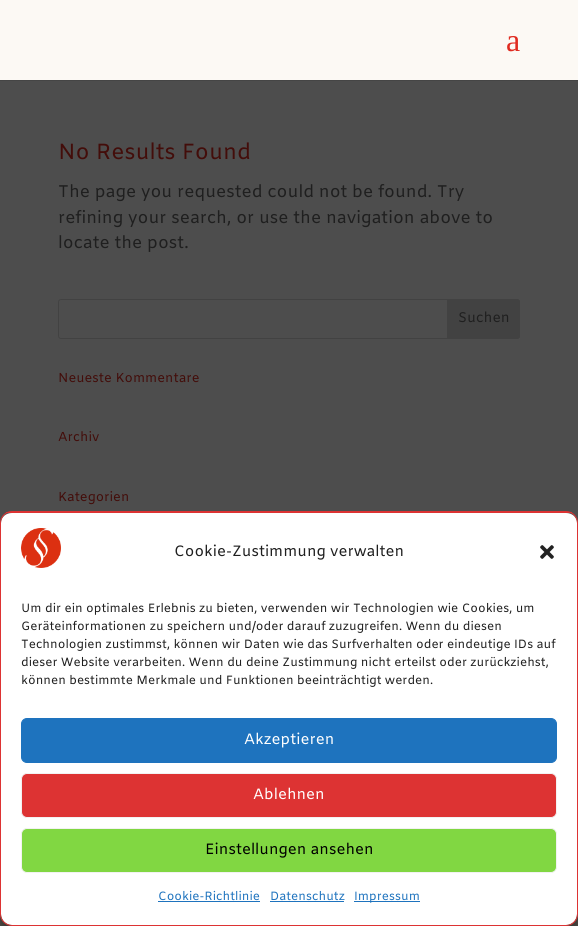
#include <cairo/cairo.h>
#include <math.h>
#include <stddef.h>


static void rounded_rect(cairo_t *cr, double x, double y, double w, double h, double r) {
  cairo_new_sub_path(cr);
  cairo_arc(cr, x + w - r, y + h - r, r, 0, M_PI / 2);
  cairo_arc(cr, x + r, y + h - r, r, M_PI / 2, M_PI);
  cairo_arc(cr, x + r, y + r, r, M_PI, 1.5 * M_PI);
  cairo_arc(cr, x + w - r, y + r, r, 1.5 * M_PI, 2 * M_PI);
  cairo_close_path(cr);
}

static void draw_shadow(cairo_t *cr, double x, double y, double w, double h, double r, double blur, double alpha) {
  cairo_push_group_with_content(cr, CAIRO_CONTENT_ALPHA);
  cairo_set_operator(cr, CAIRO_OPERATOR_SOURCE);
  for (int i = 15; i >= -15 && fmin(w, h) + blur * i / 3 > 0; i -= 2) {
    double e = blur * i / 6;
    cairo_set_source_rgba(cr, 0, 0, 0, alpha * erfc((i - 1) / 8.5) / 2);
    rounded_rect(cr, x - e, y - e, w + 2 * e, h + 2 * e, fmax(0, fmin(r + e + blur * .6, fmin(w, h) / 2 + e)));
    cairo_fill(cr);
  }
  cairo_pattern_t *soft = cairo_pop_group(cr);
  cairo_mask(cr, soft);
  cairo_pattern_destroy(soft);
}

static void draw_image(cairo_t *cr, const char *path, double x, double y, double w, double h) {
  cairo_surface_t *image = cairo_image_surface_create_from_png(path);
  cairo_save(cr);
  cairo_set_source_surface(cr, image, x, y);
  cairo_rectangle(cr, x, y, w, h);
  cairo_fill(cr);
  cairo_restore(cr);
  cairo_surface_destroy(image);
}

static void draw(cairo_t *cr) {
  cairo_set_source_rgb(cr, 77 / 255.0, 74 / 255.0, 69 / 255.0);
  cairo_paint(cr);
  cairo_set_source_rgb(cr, 69 / 255.0, 69 / 255.0, 69 / 255.0);
  cairo_rectangle(cr, 0, 80, 578, 1);
  cairo_fill(cr);
  cairo_set_source_rgb(cr, 252 / 255.0, 249 / 255.0, 244 / 255.0);
  cairo_rectangle(cr, 0, 0, 578, 80);
  cairo_fill(cr);
  cairo_set_source_rgb(cr, 77 / 255.0, 77 / 255.0, 77 / 255.0);
  cairo_rectangle(cr, 0, 81, 578, 442);
  cairo_fill(cr);
  rounded_rect(cr, 58.5, 299.5, 461, 39, 2.5);
  cairo_set_source_rgb(cr, 66 / 255.0, 66 / 255.0, 66 / 255.0);
  cairo_set_line_width(cr, 1);
  cairo_stroke(cr);
  cairo_new_path(cr);
  cairo_move_to(cr, 447, 299);
  cairo_line_to(cr, 517, 299);
  cairo_curve_to(cr, 518.5, 299, 520, 300.5, 520, 302);
  cairo_line_to(cr, 520, 336);
  cairo_curve_to(cr, 520, 337.5, 518.5, 339, 517, 339);
  cairo_line_to(cr, 447, 339);
  cairo_close_path(cr);
  cairo_fill(cr);
  cairo_save(cr);
  cairo_set_fill_rule(cr, CAIRO_FILL_RULE_EVEN_ODD);
  cairo_new_path(cr);
  cairo_move_to(cr, 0, 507);
  cairo_line_to(cr, 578, 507);
  cairo_line_to(cr, 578, 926);
  cairo_line_to(cr, 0, 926);
  cairo_close_path(cr);
  cairo_move_to(cr, 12, 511);
  cairo_line_to(cr, 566, 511);
  cairo_curve_to(cr, 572.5, 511, 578, 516.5, 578, 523);
  cairo_line_to(cr, 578, 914);
  cairo_curve_to(cr, 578, 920.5, 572.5, 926, 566, 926);
  cairo_line_to(cr, 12, 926);
  cairo_curve_to(cr, 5.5, 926, 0, 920.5, 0, 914);
  cairo_line_to(cr, 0, 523);
  cairo_curve_to(cr, 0, 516.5, 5.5, 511, 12, 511);
  cairo_close_path(cr);
  cairo_clip(cr);
  cairo_set_source_rgb(cr, 0, 0, 0);
  draw_shadow(cr, 0, 517, 578, 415, 12, 3, 0.23);
  cairo_restore(cr);
  cairo_set_source_rgb(cr, 1, 1, 1);
  cairo_new_path(cr);
  cairo_move_to(cr, 12, 513);
  cairo_line_to(cr, 566, 513);
  cairo_curve_to(cr, 572, 513, 577, 517, 577, 523);
  cairo_line_to(cr, 577, 914);
  cairo_curve_to(cr, 577, 920, 572, 925, 566, 925);
  cairo_line_to(cr, 12, 925);
  cairo_curve_to(cr, 6, 925, 1, 920, 1, 914);
  cairo_line_to(cr, 1, 523);
  cairo_curve_to(cr, 1, 517, 6, 513, 12, 513);
  cairo_close_path(cr);
  cairo_fill(cr);
  rounded_rect(cr, 0.5, 511.5, 577, 414, 11.5);
  cairo_set_source_rgb(cr, 221 / 255.0, 51 / 255.0, 51 / 255.0);
  cairo_stroke(cr);
  cairo_rectangle(cr, 6, 512, 566, 1);
  cairo_fill(cr);
  draw_image(cr, "images/1.png", 21, 528, 40, 40);
  draw_image(cr, "images/2.png", 540, 545, 14, 14);
  cairo_set_source_rgb(cr, 30 / 255.0, 115 / 255.0, 190 / 255.0);
  rounded_rect(cr, 21.5, 718.5, 535, 44, 5.5);
  cairo_fill_preserve(cr);
  cairo_stroke(cr);
  cairo_set_source_rgb(cr, 221 / 255.0, 51 / 255.0, 51 / 255.0);
  rounded_rect(cr, 21.5, 773.5, 535, 44, 5.5);
  cairo_fill_preserve(cr);
  cairo_set_source_rgb(cr, 242 / 255.0, 242 / 255.0, 242 / 255.0);
  cairo_stroke(cr);
  cairo_set_source_rgb(cr, 129 / 255.0, 215 / 255.0, 66 / 255.0);
  rounded_rect(cr, 21.5, 828.5, 535, 44, 5.5);
  cairo_fill_preserve(cr);
  cairo_set_source_rgb(cr, 242 / 255.0, 242 / 255.0, 242 / 255.0);
  cairo_stroke(cr);
  cairo_set_source_rgb(cr, 30 / 255.0, 115 / 255.0, 190 / 255.0);
  cairo_rectangle(cr, 158, 901, 102, 1);
  cairo_fill(cr);
  cairo_rectangle(cr, 270, 901, 74, 1);
  cairo_fill(cr);
  cairo_rectangle(cr, 354, 901, 66, 1);
  cairo_fill(cr);
  cairo_select_font_face(cr, "Liberation Serif", CAIRO_FONT_SLANT_NORMAL, CAIRO_FONT_WEIGHT_NORMAL);
  cairo_set_font_size(cr, 32);
  cairo_set_source_rgb(cr, 224 / 255.0, 43 / 255.0, 32 / 255.0);
  cairo_move_to(cr, 506, 51);
  cairo_show_text(cr, "a");
  cairo_select_font_face(cr, "Amiko", CAIRO_FONT_SLANT_NORMAL, CAIRO_FONT_WEIGHT_NORMAL);
  cairo_set_font_size(cr, 22);
  cairo_set_source_rgb(cr, 67 / 255.0, 13 / 255.0, 10 / 255.0);
  cairo_move_to(cr, 58, 159);
  cairo_show_text(cr, "No Results Found");
  cairo_set_font_size(cr, 17);
  cairo_set_source_rgb(cr, 31 / 255.0, 31 / 255.0, 31 / 255.0);
  cairo_move_to(cr, 58, 197);
  cairo_show_text(cr, "The page you requested could not be found. Try");
  cairo_move_to(cr, 58, 223);
  cairo_show_text(cr, "refining your search, or use the navigation above to");
  cairo_move_to(cr, 58, 248);
  cairo_show_text(cr, "locate the post.");
  cairo_set_font_size(cr, 14);
  cairo_move_to(cr, 458, 322);
  cairo_show_text(cr, "Suchen");
  cairo_set_font_size(cr, 13);
  cairo_set_source_rgb(cr, 67 / 255.0, 13 / 255.0, 10 / 255.0);
  cairo_move_to(cr, 58, 382);
  cairo_show_text(cr, "Neueste Kommentare");
  cairo_move_to(cr, 58, 441);
  cairo_show_text(cr, "Archiv");
  cairo_move_to(cr, 58, 501);
  cairo_show_text(cr, "Kategorien");
  cairo_set_font_size(cr, 15);
  cairo_set_source_rgb(cr, 31 / 255.0, 31 / 255.0, 31 / 255.0);
  cairo_move_to(cr, 174, 556);
  cairo_show_text(cr, "Cookie-Zustimmung verwalten");
  cairo_set_font_size(cr, 12);
  cairo_move_to(cr, 21, 612);
  cairo_show_text(cr, "Um dir ein optimales Erlebnis zu bieten, verwenden wir Technologien wie Cookies, um");
  cairo_move_to(cr, 21, 630);
  cairo_show_text(cr, "Geräteinformationen zu speichern und/oder darauf zuzugreifen. Wenn du diesen");
  cairo_move_to(cr, 21, 648);
  cairo_show_text(cr, "Technologien zustimmst, können wir Daten wie das Surfverhalten oder eindeutige IDs auf");
  cairo_move_to(cr, 21, 666);
  cairo_show_text(cr, "dieser Website verarbeiten. Wenn du deine Zustimmung nicht erteilst oder zurückziehst,");
  cairo_move_to(cr, 21, 684);
  cairo_show_text(cr, "können bestimmte Merkmale und Funktionen beeinträchtigt werden.");
  cairo_set_font_size(cr, 15);
  cairo_set_source_rgb(cr, 1, 1, 1);
  cairo_move_to(cr, 244, 744);
  cairo_show_text(cr, "Akzeptieren");
  cairo_move_to(cr, 253, 799);
  cairo_show_text(cr, "Ablehnen");
  cairo_set_source_rgb(cr, 0, 0, 0);
  cairo_move_to(cr, 205, 854);
  cairo_show_text(cr, "Einstellungen ansehen");
  cairo_set_font_size(cr, 12);
  cairo_set_source_rgb(cr, 30 / 255.0, 115 / 255.0, 190 / 255.0);
  cairo_move_to(cr, 158, 900);
  cairo_show_text(cr, "Cookie-Richtlinie");
  cairo_move_to(cr, 270, 900);
  cairo_show_text(cr, "Datenschutz");
  cairo_move_to(cr, 354, 900);
  cairo_show_text(cr, "Impressum");
}

int main(void) {
  cairo_surface_t *surface = cairo_image_surface_create(CAIRO_FORMAT_RGB24, 578, 926);
  cairo_t *cr = cairo_create(surface);
  cairo_font_options_t *options = cairo_font_options_create();
  cairo_font_options_set_hint_metrics(options, CAIRO_HINT_METRICS_OFF);
  cairo_font_options_set_hint_style(options, CAIRO_HINT_STYLE_NONE);
  cairo_set_font_options(cr, options);
  cairo_set_miter_limit(cr, 4);
  draw(cr);
  cairo_surface_write_to_png(surface, "out.png");
  cairo_font_options_destroy(options);
  cairo_destroy(cr);
  cairo_surface_destroy(surface);
  return 0;
}
